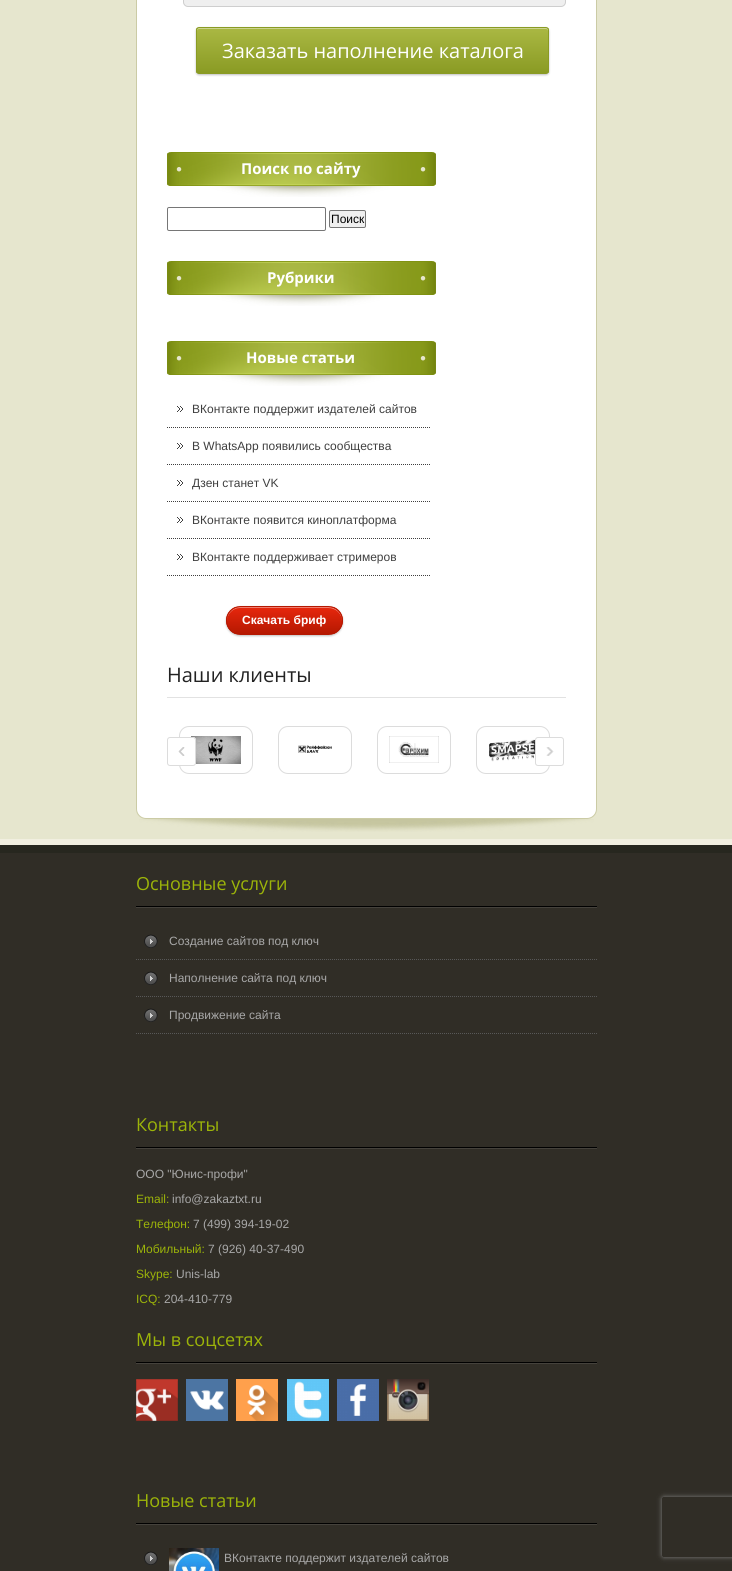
#include <cairo/cairo.h>
#include <math.h>
#include <stddef.h>


static void rounded_rect(cairo_t *cr, double x, double y, double w, double h, double r) {
  cairo_new_sub_path(cr);
  cairo_arc(cr, x + w - r, y + h - r, r, 0, M_PI / 2);
  cairo_arc(cr, x + r, y + h - r, r, M_PI / 2, M_PI);
  cairo_arc(cr, x + r, y + r, r, M_PI, 1.5 * M_PI);
  cairo_arc(cr, x + w - r, y + r, r, 1.5 * M_PI, 2 * M_PI);
  cairo_close_path(cr);
}

static void draw_shadow(cairo_t *cr, double x, double y, double w, double h, double r, double blur, double alpha) {
  cairo_push_group_with_content(cr, CAIRO_CONTENT_ALPHA);
  cairo_set_operator(cr, CAIRO_OPERATOR_SOURCE);
  for (int i = 15; i >= -15 && fmin(w, h) + blur * i / 3 > 0; i -= 2) {
    double e = blur * i / 6;
    cairo_set_source_rgba(cr, 0, 0, 0, alpha * erfc((i - 1) / 8.5) / 2);
    rounded_rect(cr, x - e, y - e, w + 2 * e, h + 2 * e, fmax(0, fmin(r + e + blur * .6, fmin(w, h) / 2 + e)));
    cairo_fill(cr);
  }
  cairo_pattern_t *soft = cairo_pop_group(cr);
  cairo_mask(cr, soft);
  cairo_pattern_destroy(soft);
}

static void draw_image(cairo_t *cr, const char *path, double x, double y, double w, double h) {
  cairo_surface_t *image = cairo_image_surface_create_from_png(path);
  cairo_save(cr);
  cairo_set_source_surface(cr, image, x, y);
  cairo_rectangle(cr, x, y, w, h);
  cairo_fill(cr);
  cairo_restore(cr);
  cairo_surface_destroy(image);
}

static void draw(cairo_t *cr) {
  cairo_pattern_t *gradient;
  cairo_set_source_rgb(cr, 230 / 255.0, 230 / 255.0, 206 / 255.0);
  cairo_paint(cr);
  cairo_set_source_rgb(cr, 1, 1, 1);
  rounded_rect(cr, 136.5, -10.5, 460, 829, 9.5);
  cairo_fill_preserve(cr);
  cairo_set_source_rgb(cr, 203 / 255.0, 203 / 255.0, 165 / 255.0);
  cairo_set_line_width(cr, 1);
  cairo_stroke(cr);
  cairo_set_source_rgb(cr, 239 / 255.0, 239 / 255.0, 239 / 255.0);
  rounded_rect(cr, 183.5, -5.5, 382, 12, 4.5);
  cairo_fill_preserve(cr);
  cairo_set_source_rgb(cr, 206 / 255.0, 206 / 255.0, 206 / 255.0);
  cairo_stroke(cr);
  cairo_set_source_rgb(cr, 0, 0, 0);
  draw_shadow(cr, 196, 28, 353, 47, 3, 1, 0.25);
  cairo_save(cr);
  rounded_rect(cr, 196, 27, 353, 47, 3);
  cairo_clip(cr);
  gradient = cairo_pattern_create_linear(373, 28, 373, 73);
  cairo_pattern_add_color_stop_rgba(gradient, 0, 170 / 255.0, 184 / 255.0, 67 / 255.0, 1);
  cairo_pattern_add_color_stop_rgba(gradient, 1, 138 / 255.0, 155 / 255.0, 36 / 255.0, 1);
  cairo_set_source(cr, gradient);
  cairo_pattern_destroy(gradient);
  cairo_rectangle(cr, 196, 28, 353, 45);
  cairo_fill(cr);
  cairo_restore(cr);
  cairo_set_source_rgb(cr, 204 / 255.0, 212 / 255.0, 142 / 255.0);
  cairo_new_path(cr);
  cairo_move_to(cr, 199, 29);
  cairo_line_to(cr, 546, 29);
  cairo_curve_to(cr, 547, 29, 548, 30, 548, 31);
  cairo_curve_to(cr, 548, 30, 548, 28, 546, 28);
  cairo_line_to(cr, 199, 28);
  cairo_curve_to(cr, 197, 28, 197, 30, 197, 31);
  cairo_curve_to(cr, 197, 30, 198, 29, 199, 29);
  cairo_close_path(cr);
  cairo_fill(cr);
  rounded_rect(cr, 196.5, 27.5, 352, 46, 2.5);
  cairo_set_source_rgb(cr, 138 / 255.0, 155 / 255.0, 36 / 255.0);
  cairo_stroke(cr);
  draw_image(cr, "images/1.png", 167, 152, 269, 45);
  rounded_rect(cr, 167.5, 207.5, 158, 23, 1.5);
  cairo_set_source_rgb(cr, 118 / 255.0, 118 / 255.0, 118 / 255.0);
  cairo_stroke(cr);
  cairo_set_source_rgb(cr, 239 / 255.0, 239 / 255.0, 239 / 255.0);
  rounded_rect(cr, 329.5, 210.5, 36, 17, 1.5);
  cairo_fill_preserve(cr);
  cairo_set_source_rgb(cr, 118 / 255.0, 118 / 255.0, 118 / 255.0);
  cairo_stroke(cr);
  draw_image(cr, "images/1.png", 167, 261, 269, 45);
  draw_image(cr, "images/1.png", 167, 341, 269, 45);
  draw_image(cr, "images/2.png", 177, 406, 6, 6);
  cairo_new_path(cr);
  cairo_move_to(cr, 167, 427.5);
  cairo_line_to(cr, 431, 427.5);
  cairo_set_source_rgb(cr, 63 / 255.0, 63 / 255.0, 63 / 255.0);
  cairo_set_dash(cr, (double[]){1, 1}, 2, 0);
  cairo_stroke(cr);
  draw_image(cr, "images/2.png", 177, 443, 6, 6);
  cairo_new_path(cr);
  cairo_move_to(cr, 167, 464.5);
  cairo_line_to(cr, 431, 464.5);
  cairo_stroke(cr);
  draw_image(cr, "images/2.png", 177, 480, 6, 6);
  cairo_new_path(cr);
  cairo_move_to(cr, 167, 501.5);
  cairo_line_to(cr, 431, 501.5);
  cairo_stroke(cr);
  draw_image(cr, "images/2.png", 177, 517, 6, 6);
  cairo_new_path(cr);
  cairo_move_to(cr, 167, 538.5);
  cairo_line_to(cr, 431, 538.5);
  cairo_stroke(cr);
  draw_image(cr, "images/2.png", 177, 554, 6, 6);
  cairo_new_path(cr);
  cairo_move_to(cr, 167, 575.5);
  cairo_line_to(cr, 431, 575.5);
  cairo_stroke(cr);
  cairo_set_source_rgb(cr, 0, 0, 0);
  draw_shadow(cr, 226, 607, 117, 29, 14.5, 1, 0.25);
  cairo_save(cr);
  rounded_rect(cr, 226, 606, 117, 29, 14.5);
  cairo_clip(cr);
  gradient = cairo_pattern_create_linear(285, 607, 285, 634);
  cairo_pattern_add_color_stop_rgba(gradient, 0, 231 / 255.0, 39 / 255.0, 13 / 255.0, 1);
  cairo_pattern_add_color_stop_rgba(gradient, 1, 181 / 255.0, 24 / 255.0, 1 / 255.0, 1);
  cairo_set_source(cr, gradient);
  cairo_pattern_destroy(gradient);
  cairo_rectangle(cr, 226, 607, 117, 27);
  cairo_fill(cr);
  cairo_restore(cr);
  cairo_set_source_rgba(cr, 1, 1, 1, 0.4);
  cairo_new_path(cr);
  cairo_move_to(cr, 240, 608);
  cairo_line_to(cr, 328, 608);
  cairo_curve_to(cr, 336, 608, 342, 614, 342, 621);
  cairo_line_to(cr, 342, 620);
  cairo_curve_to(cr, 342, 613, 336, 607, 328, 607);
  cairo_line_to(cr, 240, 607);
  cairo_curve_to(cr, 233, 607, 227, 613, 227, 620);
  cairo_line_to(cr, 227, 621);
  cairo_curve_to(cr, 227, 614, 233, 608, 240, 608);
  cairo_close_path(cr);
  cairo_fill(cr);
  rounded_rect(cr, 226.5, 606.5, 116, 28, 14);
  cairo_set_source_rgb(cr, 181 / 255.0, 24 / 255.0, 1 / 255.0);
  cairo_set_dash(cr, NULL, 0, 0);
  cairo_stroke(cr);
  cairo_set_source_rgb(cr, 226 / 255.0, 226 / 255.0, 226 / 255.0);
  cairo_rectangle(cr, 167, 697, 399, 1);
  cairo_fill(cr);
  rounded_rect(cr, 179.5, 726.5, 73, 47, 9.5);
  cairo_set_source_rgb(cr, 220 / 255.0, 220 / 255.0, 220 / 255.0);
  cairo_stroke(cr);
  draw_image(cr, "images/3.png", 191, 736, 50, 28);
  rounded_rect(cr, 278.5, 726.5, 73, 47, 9.5);
  cairo_stroke(cr);
  draw_image(cr, "images/4.png", 298, 745, 34, 8);
  rounded_rect(cr, 377.5, 726.5, 73, 47, 9.5);
  cairo_stroke(cr);
  draw_image(cr, "images/5.png", 389, 736, 50, 27);
  rounded_rect(cr, 476.5, 726.5, 73, 47, 9.5);
  cairo_stroke(cr);
  draw_image(cr, "images/6.png", 489, 739, 47, 23);
  cairo_set_source_rgb(cr, 1, 1, 1);
  rounded_rect(cr, 167, 737, 29, 29, 3);
  cairo_fill(cr);
  draw_image(cr, "images/7.png", 178, 747, 7, 9);
  rounded_rect(cr, 167.5, 737.5, 28, 28, 2.5);
  cairo_set_source_rgb(cr, 220 / 255.0, 220 / 255.0, 220 / 255.0);
  cairo_stroke(cr);
  cairo_set_source_rgb(cr, 1, 1, 1);
  rounded_rect(cr, 535, 737, 29, 29, 3);
  cairo_fill(cr);
  draw_image(cr, "images/8.png", 546, 747, 8, 9);
  rounded_rect(cr, 535.5, 737.5, 28, 28, 2.5);
  cairo_set_source_rgb(cr, 220 / 255.0, 220 / 255.0, 220 / 255.0);
  cairo_stroke(cr);
  draw_image(cr, "images/9.png", 139, 819, 455, 13);
  cairo_set_source_rgb(cr, 241 / 255.0, 239 / 255.0, 224 / 255.0);
  cairo_rectangle(cr, 0, 839, 732, 6);
  cairo_fill(cr);
  cairo_set_source_rgb(cr, 48 / 255.0, 45 / 255.0, 38 / 255.0);
  cairo_rectangle(cr, 0, 853, 732, 718);
  cairo_fill(cr);
  cairo_set_source_rgb(cr, 39 / 255.0, 39 / 255.0, 31 / 255.0);
  cairo_rectangle(cr, 0, 845, 732, 8);
  cairo_fill(cr);
  draw_image(cr, "images/10.png", 136, 906, 461, 2);
  draw_image(cr, "images/11.png", 144, 934, 14, 14);
  cairo_new_path(cr);
  cairo_move_to(cr, 136, 959.5);
  cairo_line_to(cr, 597, 959.5);
  cairo_set_source_rgb(cr, 88 / 255.0, 88 / 255.0, 88 / 255.0);
  cairo_set_dash(cr, (double[]){1, 1}, 2, 0);
  cairo_stroke(cr);
  draw_image(cr, "images/11.png", 144, 971, 14, 14);
  cairo_new_path(cr);
  cairo_move_to(cr, 136, 996.5);
  cairo_line_to(cr, 597, 996.5);
  cairo_stroke(cr);
  draw_image(cr, "images/11.png", 144, 1008, 14, 14);
  cairo_new_path(cr);
  cairo_move_to(cr, 136, 1033.5);
  cairo_line_to(cr, 597, 1033.5);
  cairo_stroke(cr);
  draw_image(cr, "images/10.png", 136, 1147, 461, 2);
  draw_image(cr, "images/10.png", 136, 1362, 461, 2);
  draw_image(cr, "images/12.png", 136, 1379, 42, 42);
  draw_image(cr, "images/13.png", 186, 1379, 42, 42);
  draw_image(cr, "images/14.png", 236, 1379, 42, 42);
  draw_image(cr, "images/15.png", 287, 1379, 42, 42);
  draw_image(cr, "images/16.png", 337, 1379, 42, 42);
  draw_image(cr, "images/17.png", 387, 1379, 42, 42);
  draw_image(cr, "images/10.png", 136, 1523, 461, 2);
  draw_image(cr, "images/11.png", 144, 1551, 14, 14);
  draw_image(cr, "images/18.png", 169, 1548, 50, 23);
  cairo_save(cr);
  cairo_set_fill_rule(cr, CAIRO_FILL_RULE_EVEN_ODD);
  cairo_new_path(cr);
  cairo_move_to(cr, 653, 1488);
  cairo_line_to(cr, 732, 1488);
  cairo_line_to(cr, 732, 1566);
  cairo_line_to(cr, 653, 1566);
  cairo_close_path(cr);
  cairo_move_to(cr, 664, 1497);
  cairo_line_to(cr, 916, 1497);
  cairo_curve_to(cr, 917, 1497, 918, 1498, 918, 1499);
  cairo_line_to(cr, 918, 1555);
  cairo_curve_to(cr, 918, 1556, 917, 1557, 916, 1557);
  cairo_line_to(cr, 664, 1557);
  cairo_curve_to(cr, 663, 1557, 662, 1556, 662, 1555);
  cairo_line_to(cr, 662, 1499);
  cairo_curve_to(cr, 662, 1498, 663, 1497, 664, 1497);
  cairo_close_path(cr);
  cairo_clip(cr);
  cairo_set_source_rgb(cr, 128 / 255.0, 128 / 255.0, 128 / 255.0);
  draw_shadow(cr, 662, 1497, 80, 60, 2, 2.5, 1);
  cairo_restore(cr);
  cairo_select_font_face(cr, "Open Sans", CAIRO_FONT_SLANT_NORMAL, CAIRO_FONT_WEIGHT_NORMAL);
  cairo_set_font_size(cr, 20);
  cairo_set_source_rgb(cr, 1, 1, 1);
  cairo_move_to(cr, 222, 58);
  cairo_show_text(cr, "Заказать наполнение каталога");
  cairo_select_font_face(cr, "Open Sans", CAIRO_FONT_SLANT_NORMAL, CAIRO_FONT_WEIGHT_BOLD);
  cairo_set_font_size(cr, 15);
  cairo_move_to(cr, 241, 174);
  cairo_show_text(cr, "Поиск по сайту");
  cairo_select_font_face(cr, "Liberation Sans", CAIRO_FONT_SLANT_NORMAL, CAIRO_FONT_WEIGHT_NORMAL);
  cairo_set_font_size(cr, 12);
  cairo_set_source_rgb(cr, 0, 0, 0);
  cairo_move_to(cr, 331, 223);
  cairo_show_text(cr, "Поиск");
  cairo_select_font_face(cr, "Open Sans", CAIRO_FONT_SLANT_NORMAL, CAIRO_FONT_WEIGHT_BOLD);
  cairo_set_font_size(cr, 15);
  cairo_set_source_rgb(cr, 1, 1, 1);
  cairo_move_to(cr, 267, 283);
  cairo_show_text(cr, "Рубрики");
  cairo_move_to(cr, 246, 363);
  cairo_show_text(cr, "Новые статьи");
  cairo_select_font_face(cr, "Liberation Sans", CAIRO_FONT_SLANT_NORMAL, CAIRO_FONT_WEIGHT_NORMAL);
  cairo_set_font_size(cr, 12);
  cairo_set_source_rgb(cr, 63 / 255.0, 63 / 255.0, 63 / 255.0);
  cairo_move_to(cr, 192, 413);
  cairo_show_text(cr, "ВКонтакте поддержит издателей сайтов");
  cairo_move_to(cr, 192, 450);
  cairo_show_text(cr, "В WhatsApp появились сообщества");
  cairo_move_to(cr, 192, 487);
  cairo_show_text(cr, "Дзен станет VK");
  cairo_move_to(cr, 192, 524);
  cairo_show_text(cr, "ВКонтакте появится киноплатформа");
  cairo_move_to(cr, 192, 561);
  cairo_show_text(cr, "ВКонтакте поддерживает стримеров");
  cairo_select_font_face(cr, "Liberation Sans", CAIRO_FONT_SLANT_NORMAL, CAIRO_FONT_WEIGHT_BOLD);
  cairo_set_source_rgb(cr, 1, 1, 1);
  cairo_move_to(cr, 242, 624);
  cairo_show_text(cr, "Скачать бриф");
  cairo_select_font_face(cr, "Open Sans", CAIRO_FONT_SLANT_NORMAL, CAIRO_FONT_WEIGHT_NORMAL);
  cairo_set_font_size(cr, 20);
  cairo_set_source_rgb(cr, 34 / 255.0, 34 / 255.0, 34 / 255.0);
  cairo_move_to(cr, 167, 682);
  cairo_show_text(cr, "Наши клиенты");
  cairo_set_font_size(cr, 18);
  cairo_set_source_rgb(cr, 156 / 255.0, 180 / 255.0, 9 / 255.0);
  cairo_move_to(cr, 136, 890);
  cairo_show_text(cr, "Основные услуги");
  cairo_select_font_face(cr, "Liberation Sans", CAIRO_FONT_SLANT_NORMAL, CAIRO_FONT_WEIGHT_NORMAL);
  cairo_set_font_size(cr, 12);
  cairo_set_source_rgb(cr, 168 / 255.0, 168 / 255.0, 168 / 255.0);
  cairo_move_to(cr, 169, 945);
  cairo_show_text(cr, "Создание сайтов под ключ");
  cairo_move_to(cr, 169, 982);
  cairo_show_text(cr, "Наполнение сайта под ключ");
  cairo_move_to(cr, 169, 1019);
  cairo_show_text(cr, "Продвижение сайта");
  cairo_select_font_face(cr, "Open Sans", CAIRO_FONT_SLANT_NORMAL, CAIRO_FONT_WEIGHT_NORMAL);
  cairo_set_font_size(cr, 18);
  cairo_set_source_rgb(cr, 156 / 255.0, 180 / 255.0, 9 / 255.0);
  cairo_move_to(cr, 136, 1131);
  cairo_show_text(cr, "Контакты");
  cairo_select_font_face(cr, "Liberation Sans", CAIRO_FONT_SLANT_NORMAL, CAIRO_FONT_WEIGHT_NORMAL);
  cairo_set_font_size(cr, 12);
  cairo_set_source_rgb(cr, 168 / 255.0, 168 / 255.0, 168 / 255.0);
  cairo_move_to(cr, 136, 1178);
  cairo_show_text(cr, "ООО \"Юнис-профи\"");
  cairo_set_source_rgb(cr, 156 / 255.0, 180 / 255.0, 9 / 255.0);
  cairo_move_to(cr, 136, 1203);
  cairo_show_text(cr, "Email:");
  cairo_set_source_rgb(cr, 168 / 255.0, 168 / 255.0, 168 / 255.0);
  cairo_move_to(cr, 172, 1203);
  cairo_show_text(cr, "info@zakaztxt.ru");
  cairo_set_source_rgb(cr, 156 / 255.0, 180 / 255.0, 9 / 255.0);
  cairo_move_to(cr, 136, 1228);
  cairo_show_text(cr, "Телефон:");
  cairo_set_source_rgb(cr, 168 / 255.0, 168 / 255.0, 168 / 255.0);
  cairo_move_to(cr, 193, 1228);
  cairo_show_text(cr, "7 (499) 394-19-02");
  cairo_set_source_rgb(cr, 156 / 255.0, 180 / 255.0, 9 / 255.0);
  cairo_move_to(cr, 136, 1253);
  cairo_show_text(cr, "Мобильный:");
  cairo_set_source_rgb(cr, 168 / 255.0, 168 / 255.0, 168 / 255.0);
  cairo_move_to(cr, 208, 1253);
  cairo_show_text(cr, "7 (926) 40-37-490");
  cairo_set_source_rgb(cr, 156 / 255.0, 180 / 255.0, 9 / 255.0);
  cairo_move_to(cr, 136, 1278);
  cairo_show_text(cr, "Skype:");
  cairo_set_source_rgb(cr, 168 / 255.0, 168 / 255.0, 168 / 255.0);
  cairo_move_to(cr, 176, 1278);
  cairo_show_text(cr, "Unis-lab");
  cairo_set_source_rgb(cr, 156 / 255.0, 180 / 255.0, 9 / 255.0);
  cairo_move_to(cr, 136, 1303);
  cairo_show_text(cr, "ICQ:");
  cairo_set_source_rgb(cr, 168 / 255.0, 168 / 255.0, 168 / 255.0);
  cairo_move_to(cr, 164, 1303);
  cairo_show_text(cr, "204-410-779");
  cairo_select_font_face(cr, "Open Sans", CAIRO_FONT_SLANT_NORMAL, CAIRO_FONT_WEIGHT_NORMAL);
  cairo_set_font_size(cr, 18);
  cairo_set_source_rgb(cr, 156 / 255.0, 180 / 255.0, 9 / 255.0);
  cairo_move_to(cr, 136, 1346);
  cairo_show_text(cr, "Мы в соцсетях");
  cairo_move_to(cr, 136, 1507);
  cairo_show_text(cr, "Новые статьи");
  cairo_select_font_face(cr, "Liberation Sans", CAIRO_FONT_SLANT_NORMAL, CAIRO_FONT_WEIGHT_NORMAL);
  cairo_set_font_size(cr, 12);
  cairo_set_source_rgb(cr, 168 / 255.0, 168 / 255.0, 168 / 255.0);
  cairo_move_to(cr, 224, 1562);
  cairo_show_text(cr, "ВКонтакте поддержит издателей сайтов");
}

int main(void) {
  cairo_surface_t *surface = cairo_image_surface_create(CAIRO_FORMAT_RGB24, 732, 1571);
  cairo_t *cr = cairo_create(surface);
  cairo_font_options_t *options = cairo_font_options_create();
  cairo_font_options_set_hint_metrics(options, CAIRO_HINT_METRICS_OFF);
  cairo_font_options_set_hint_style(options, CAIRO_HINT_STYLE_NONE);
  cairo_set_font_options(cr, options);
  cairo_set_miter_limit(cr, 4);
  draw(cr);
  cairo_surface_write_to_png(surface, "out.png");
  cairo_font_options_destroy(options);
  cairo_destroy(cr);
  cairo_surface_destroy(surface);
  return 0;
}
